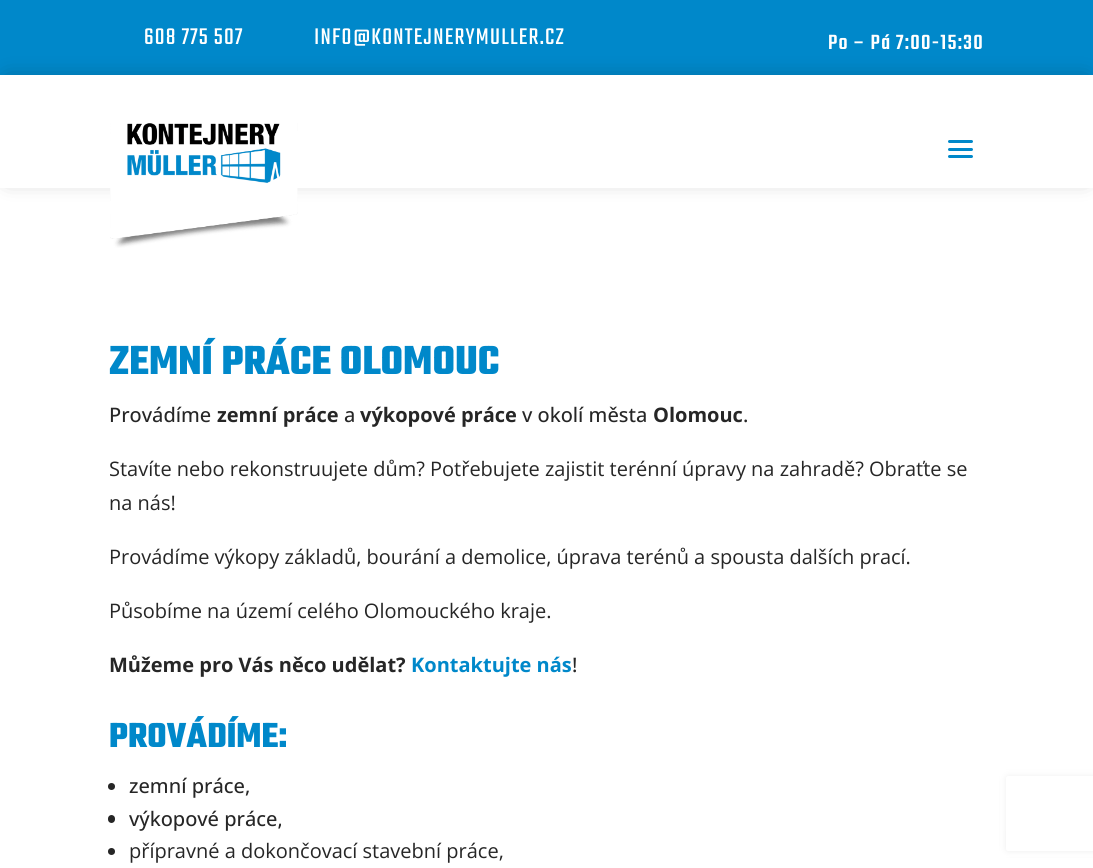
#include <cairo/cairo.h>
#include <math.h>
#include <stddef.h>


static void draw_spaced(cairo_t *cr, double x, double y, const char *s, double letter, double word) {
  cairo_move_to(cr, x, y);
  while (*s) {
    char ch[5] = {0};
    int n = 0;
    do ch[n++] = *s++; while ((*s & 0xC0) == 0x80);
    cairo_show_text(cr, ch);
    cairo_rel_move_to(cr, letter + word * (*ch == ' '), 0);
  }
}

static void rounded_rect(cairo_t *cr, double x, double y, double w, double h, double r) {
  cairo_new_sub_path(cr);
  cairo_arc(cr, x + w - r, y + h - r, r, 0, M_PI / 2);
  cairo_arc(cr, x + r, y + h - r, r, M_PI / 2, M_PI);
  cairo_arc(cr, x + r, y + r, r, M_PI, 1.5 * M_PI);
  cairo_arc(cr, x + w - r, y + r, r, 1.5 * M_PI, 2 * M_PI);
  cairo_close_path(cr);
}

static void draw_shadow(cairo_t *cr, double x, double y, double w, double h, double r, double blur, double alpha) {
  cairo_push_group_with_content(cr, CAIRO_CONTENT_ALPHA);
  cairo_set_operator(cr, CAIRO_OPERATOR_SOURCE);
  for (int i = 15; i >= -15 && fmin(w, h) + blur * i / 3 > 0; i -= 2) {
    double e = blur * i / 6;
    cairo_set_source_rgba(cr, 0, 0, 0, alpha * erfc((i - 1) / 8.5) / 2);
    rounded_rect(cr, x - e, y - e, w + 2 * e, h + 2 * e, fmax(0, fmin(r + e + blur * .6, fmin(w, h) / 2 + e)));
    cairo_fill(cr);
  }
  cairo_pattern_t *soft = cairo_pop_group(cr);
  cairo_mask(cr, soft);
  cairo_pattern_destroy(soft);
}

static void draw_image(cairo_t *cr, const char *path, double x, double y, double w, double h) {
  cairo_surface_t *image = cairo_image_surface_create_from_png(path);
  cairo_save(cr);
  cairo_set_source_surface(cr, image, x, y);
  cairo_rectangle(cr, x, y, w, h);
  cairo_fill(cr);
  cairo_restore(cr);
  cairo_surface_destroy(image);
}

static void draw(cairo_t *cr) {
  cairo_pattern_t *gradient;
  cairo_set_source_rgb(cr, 1, 1, 1);
  cairo_paint(cr);
  cairo_set_source_rgb(cr, 0, 136 / 255.0, 202 / 255.0);
  cairo_rectangle(cr, 0, 0, 1093, 75);
  cairo_fill(cr);
  cairo_set_source_rgb(cr, 0, 0, 0);
  draw_shadow(cr, 8, 80, 1078, 98, 0, 11, 0.3);
  cairo_set_source_rgb(cr, 1, 1, 1);
  cairo_rectangle(cr, 0, 75, 1093, 113);
  cairo_fill(cr);
  draw_image(cr, "images/1.png", 110, 123, 188, 125);
  cairo_set_source_rgb(cr, 0, 136 / 255.0, 202 / 255.0);
  rounded_rect(cr, 948, 148, 25, 3, 1.5);
  cairo_fill(cr);
  rounded_rect(cr, 948, 140, 25, 3, 1.5);
  cairo_fill(cr);
  rounded_rect(cr, 948, 155, 25, 3, 1.5);
  cairo_fill(cr);
  cairo_save(cr);
  cairo_set_fill_rule(cr, CAIRO_FILL_RULE_EVEN_ODD);
  cairo_new_path(cr);
  cairo_move_to(cr, 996, 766);
  cairo_line_to(cr, 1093, 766);
  cairo_line_to(cr, 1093, 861);
  cairo_line_to(cr, 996, 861);
  cairo_close_path(cr);
  cairo_move_to(cr, 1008.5, 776);
  cairo_line_to(cr, 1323.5, 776);
  cairo_curve_to(cr, 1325, 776, 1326, 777, 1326, 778.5);
  cairo_line_to(cr, 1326, 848.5);
  cairo_curve_to(cr, 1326, 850, 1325, 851, 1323.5, 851);
  cairo_line_to(cr, 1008.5, 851);
  cairo_curve_to(cr, 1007, 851, 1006, 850, 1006, 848.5);
  cairo_line_to(cr, 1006, 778.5);
  cairo_curve_to(cr, 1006, 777, 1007, 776, 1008.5, 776);
  cairo_close_path(cr);
  cairo_clip(cr);
  cairo_set_source_rgb(cr, 128 / 255.0, 128 / 255.0, 128 / 255.0);
  draw_shadow(cr, 1006, 776, 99, 75, 2.5, 3, 1);
  cairo_restore(cr);
  gradient = cairo_pattern_create_linear(547, 100, 547, 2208);
  cairo_pattern_add_color_stop_rgba(gradient, 0, 1, 1, 1, 1);
  cairo_pattern_add_color_stop_rgba(gradient, 1, 1, 1, 1, 0.61);
  cairo_set_source(cr, gradient);
  cairo_pattern_destroy(gradient);
  cairo_rectangle(cr, 1000, 770, 93, 87);
  cairo_fill(cr);
  cairo_set_source_rgb(cr, 38 / 255.0, 38 / 255.0, 38 / 255.0);
  cairo_arc(cr, 111.5, 786.5, 3.5, 0, 2 * M_PI);
  cairo_fill(cr);
  rounded_rect(cr, 108, 815, 7, 8, 3.5);
  cairo_fill(cr);
  cairo_arc(cr, 111.5, 851.5, 3.5, 0, 2 * M_PI);
  cairo_fill(cr);
  cairo_select_font_face(cr, "Teko", CAIRO_FONT_SLANT_NORMAL, CAIRO_FONT_WEIGHT_NORMAL);
  cairo_set_font_size(cr, 25);
  cairo_set_source_rgb(cr, 1, 1, 1);
  draw_spaced(cr, 144, 44, "608 775 507", 1.25, 0);
  draw_spaced(cr, 314, 44, "INFO@KONTEJNERYMULLER.CZ", 1.25, 0);
  cairo_select_font_face(cr, "Teko Medium", CAIRO_FONT_SLANT_NORMAL, CAIRO_FONT_WEIGHT_NORMAL);
  cairo_set_font_size(cr, 22.5);
  draw_spaced(cr, 828, 49, "Po – Pá 7:00-15:30", 1.25, 0);
  cairo_select_font_face(cr, "Teko", CAIRO_FONT_SLANT_NORMAL, CAIRO_FONT_WEIGHT_BOLD);
  cairo_set_font_size(cr, 43.75);
  cairo_set_source_rgb(cr, 0, 136 / 255.0, 202 / 255.0);
  cairo_move_to(cr, 109, 374);
  cairo_show_text(cr, "ZEMNÍ PRÁCE OLOMOUC");
  cairo_select_font_face(cr, "Open Sans Medium", CAIRO_FONT_SLANT_NORMAL, CAIRO_FONT_WEIGHT_NORMAL);
  cairo_set_font_size(cr, 20);
  cairo_set_source_rgb(cr, 38 / 255.0, 38 / 255.0, 38 / 255.0);
  cairo_move_to(cr, 109, 422);
  cairo_show_text(cr, "Provádíme");
  cairo_select_font_face(cr, "Open Sans", CAIRO_FONT_SLANT_NORMAL, CAIRO_FONT_WEIGHT_BOLD);
  cairo_move_to(cr, 217, 422);
  cairo_show_text(cr, "zemní práce");
  cairo_select_font_face(cr, "Open Sans Medium", CAIRO_FONT_SLANT_NORMAL, CAIRO_FONT_WEIGHT_NORMAL);
  cairo_move_to(cr, 344, 422);
  cairo_show_text(cr, "a");
  cairo_select_font_face(cr, "Open Sans", CAIRO_FONT_SLANT_NORMAL, CAIRO_FONT_WEIGHT_BOLD);
  cairo_move_to(cr, 360, 422);
  cairo_show_text(cr, "výkopové práce");
  cairo_select_font_face(cr, "Open Sans Medium", CAIRO_FONT_SLANT_NORMAL, CAIRO_FONT_WEIGHT_NORMAL);
  cairo_move_to(cr, 522, 422);
  cairo_show_text(cr, "v okolí města");
  cairo_select_font_face(cr, "Open Sans", CAIRO_FONT_SLANT_NORMAL, CAIRO_FONT_WEIGHT_BOLD);
  cairo_move_to(cr, 653, 422);
  cairo_show_text(cr, "Olomouc");
  cairo_select_font_face(cr, "Open Sans Medium", CAIRO_FONT_SLANT_NORMAL, CAIRO_FONT_WEIGHT_NORMAL);
  cairo_move_to(cr, 743, 422);
  cairo_show_text(cr, ".");
  cairo_select_font_face(cr, "Open Sans", CAIRO_FONT_SLANT_NORMAL, CAIRO_FONT_WEIGHT_NORMAL);
  cairo_move_to(cr, 109, 476);
  cairo_show_text(cr, "Stavíte nebo rekonstruujete dům? Potřebujete zajistit terénní úpravy na zahradě? Obraťte se");
  cairo_move_to(cr, 109, 510);
  cairo_show_text(cr, "na nás!");
  cairo_move_to(cr, 109, 564);
  cairo_show_text(cr, "Provádíme výkopy základů, bourání a demolice, úprava terénů a spousta dalších prací.");
  cairo_move_to(cr, 109, 618);
  cairo_show_text(cr, "Působíme na území celého Olomouckého kraje.");
  cairo_select_font_face(cr, "Open Sans", CAIRO_FONT_SLANT_NORMAL, CAIRO_FONT_WEIGHT_BOLD);
  cairo_move_to(cr, 109, 672);
  cairo_show_text(cr, "Můžeme pro Vás něco udělat?");
  cairo_set_source_rgb(cr, 0, 136 / 255.0, 202 / 255.0);
  cairo_move_to(cr, 411, 672);
  cairo_show_text(cr, "Kontaktujte nás");
  cairo_select_font_face(cr, "Open Sans Medium", CAIRO_FONT_SLANT_NORMAL, CAIRO_FONT_WEIGHT_NORMAL);
  cairo_set_source_rgb(cr, 38 / 255.0, 38 / 255.0, 38 / 255.0);
  cairo_move_to(cr, 572, 672);
  cairo_show_text(cr, "!");
  cairo_select_font_face(cr, "Teko", CAIRO_FONT_SLANT_NORMAL, CAIRO_FONT_WEIGHT_BOLD);
  cairo_set_font_size(cr, 37.5);
  cairo_set_source_rgb(cr, 0, 136 / 255.0, 202 / 255.0);
  cairo_move_to(cr, 109, 747);
  cairo_show_text(cr, "PROVÁDÍME:");
  cairo_select_font_face(cr, "Open Sans Medium", CAIRO_FONT_SLANT_NORMAL, CAIRO_FONT_WEIGHT_NORMAL);
  cairo_set_font_size(cr, 20);
  cairo_set_source_rgb(cr, 38 / 255.0, 38 / 255.0, 38 / 255.0);
  cairo_move_to(cr, 129, 793);
  cairo_show_text(cr, "zemní práce,");
  cairo_move_to(cr, 129, 826);
  cairo_show_text(cr, "výkopové práce,");
  cairo_select_font_face(cr, "Open Sans", CAIRO_FONT_SLANT_NORMAL, CAIRO_FONT_WEIGHT_NORMAL);
  cairo_move_to(cr, 129, 858);
  cairo_show_text(cr, "přípravné a dokončovací stavební práce,");
}

int main(void) {
  cairo_surface_t *surface = cairo_image_surface_create(CAIRO_FORMAT_RGB24, 1093, 868);
  cairo_t *cr = cairo_create(surface);
  cairo_font_options_t *options = cairo_font_options_create();
  cairo_font_options_set_hint_metrics(options, CAIRO_HINT_METRICS_OFF);
  cairo_font_options_set_hint_style(options, CAIRO_HINT_STYLE_NONE);
  cairo_set_font_options(cr, options);
  cairo_set_miter_limit(cr, 4);
  draw(cr);
  cairo_surface_write_to_png(surface, "out.png");
  cairo_font_options_destroy(options);
  cairo_destroy(cr);
  cairo_surface_destroy(surface);
  return 0;
}
